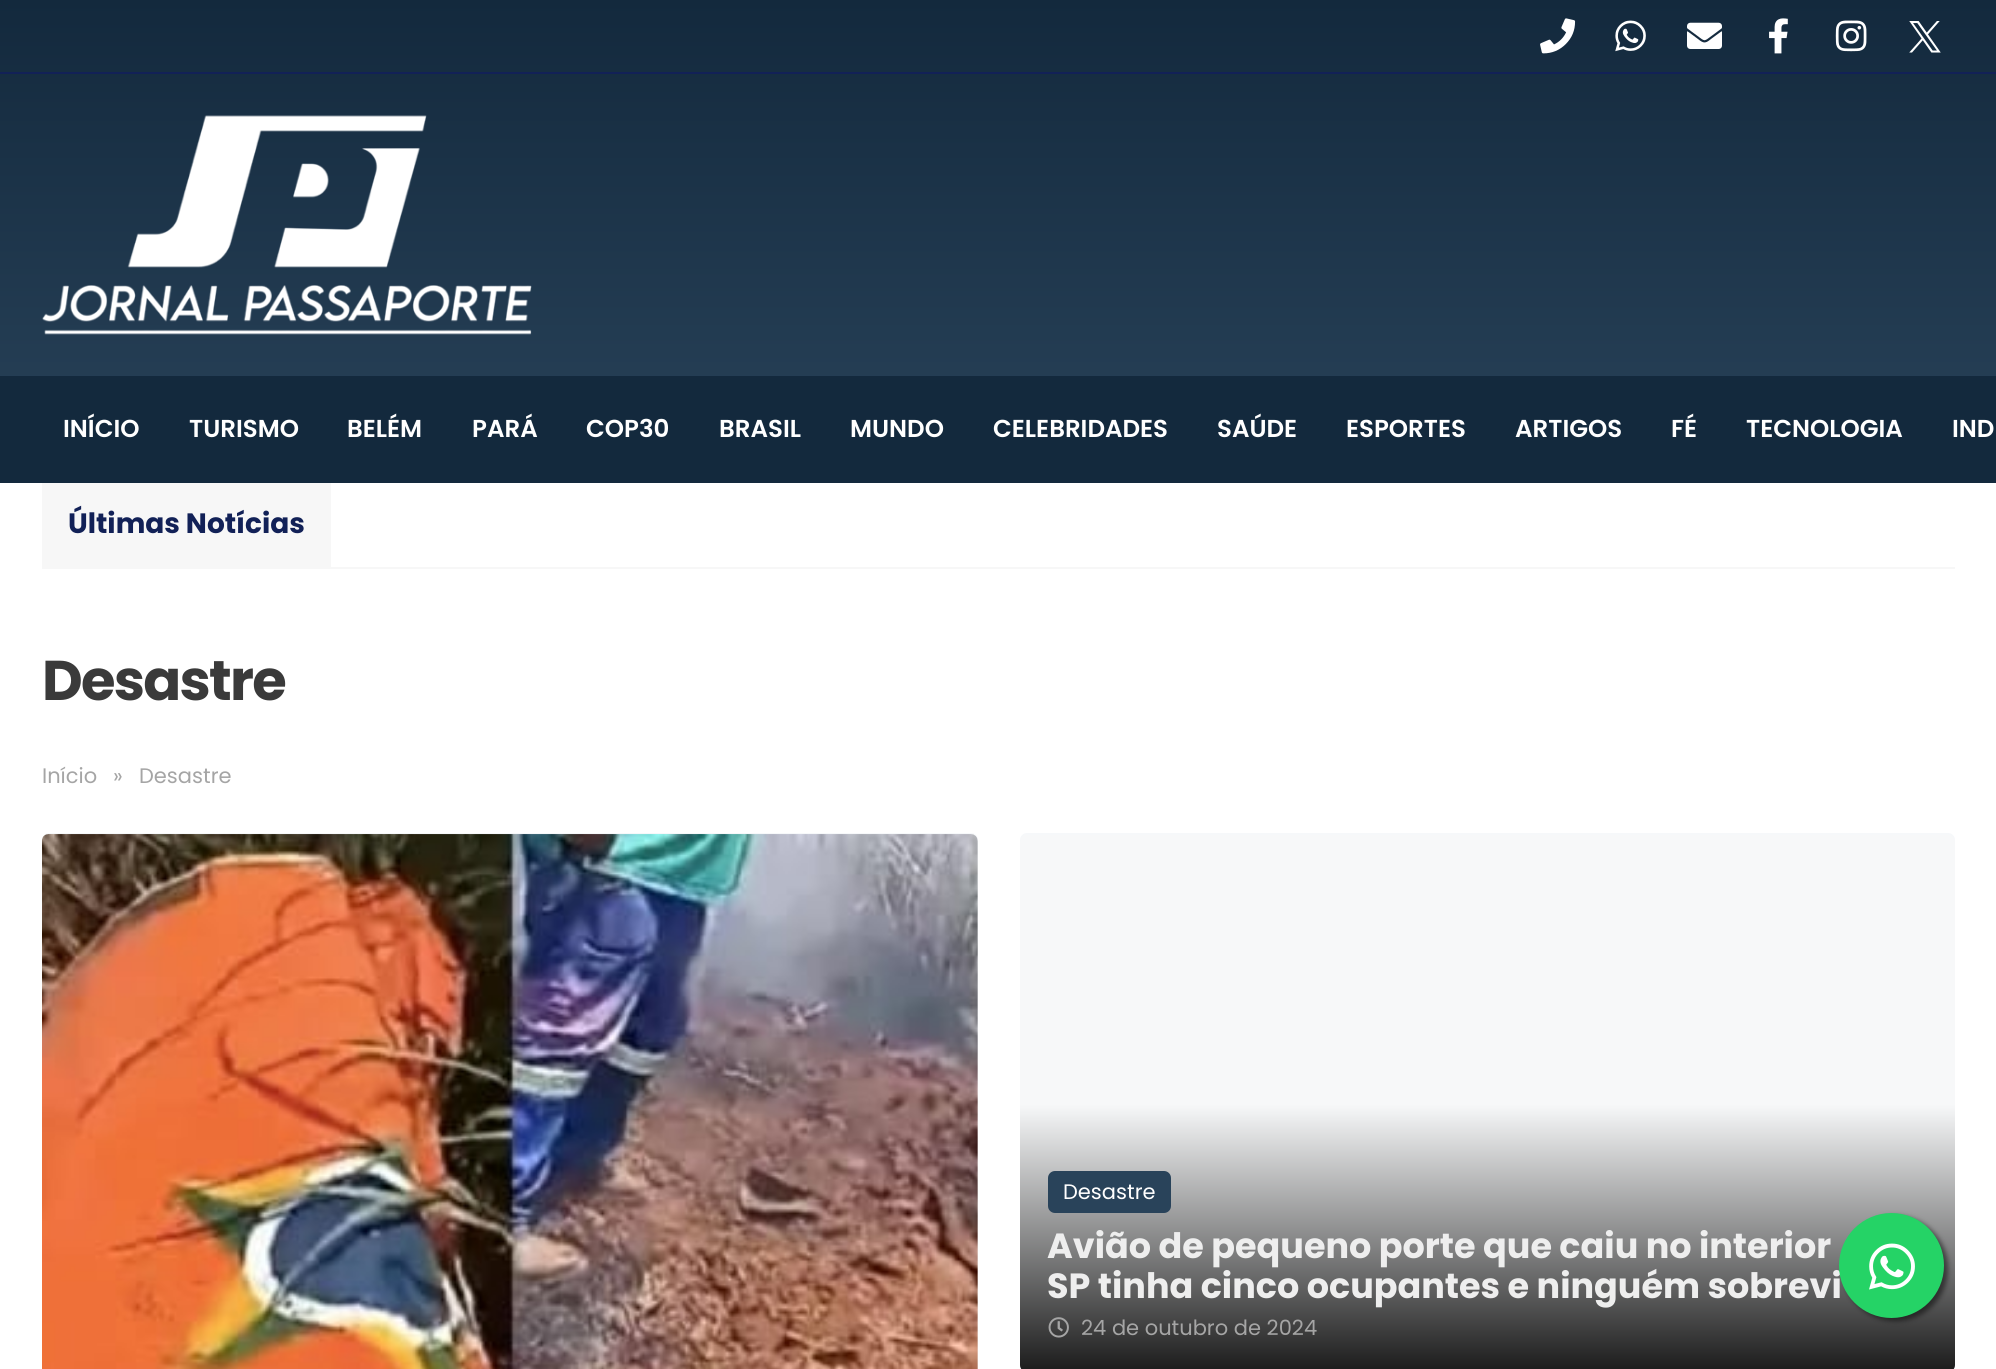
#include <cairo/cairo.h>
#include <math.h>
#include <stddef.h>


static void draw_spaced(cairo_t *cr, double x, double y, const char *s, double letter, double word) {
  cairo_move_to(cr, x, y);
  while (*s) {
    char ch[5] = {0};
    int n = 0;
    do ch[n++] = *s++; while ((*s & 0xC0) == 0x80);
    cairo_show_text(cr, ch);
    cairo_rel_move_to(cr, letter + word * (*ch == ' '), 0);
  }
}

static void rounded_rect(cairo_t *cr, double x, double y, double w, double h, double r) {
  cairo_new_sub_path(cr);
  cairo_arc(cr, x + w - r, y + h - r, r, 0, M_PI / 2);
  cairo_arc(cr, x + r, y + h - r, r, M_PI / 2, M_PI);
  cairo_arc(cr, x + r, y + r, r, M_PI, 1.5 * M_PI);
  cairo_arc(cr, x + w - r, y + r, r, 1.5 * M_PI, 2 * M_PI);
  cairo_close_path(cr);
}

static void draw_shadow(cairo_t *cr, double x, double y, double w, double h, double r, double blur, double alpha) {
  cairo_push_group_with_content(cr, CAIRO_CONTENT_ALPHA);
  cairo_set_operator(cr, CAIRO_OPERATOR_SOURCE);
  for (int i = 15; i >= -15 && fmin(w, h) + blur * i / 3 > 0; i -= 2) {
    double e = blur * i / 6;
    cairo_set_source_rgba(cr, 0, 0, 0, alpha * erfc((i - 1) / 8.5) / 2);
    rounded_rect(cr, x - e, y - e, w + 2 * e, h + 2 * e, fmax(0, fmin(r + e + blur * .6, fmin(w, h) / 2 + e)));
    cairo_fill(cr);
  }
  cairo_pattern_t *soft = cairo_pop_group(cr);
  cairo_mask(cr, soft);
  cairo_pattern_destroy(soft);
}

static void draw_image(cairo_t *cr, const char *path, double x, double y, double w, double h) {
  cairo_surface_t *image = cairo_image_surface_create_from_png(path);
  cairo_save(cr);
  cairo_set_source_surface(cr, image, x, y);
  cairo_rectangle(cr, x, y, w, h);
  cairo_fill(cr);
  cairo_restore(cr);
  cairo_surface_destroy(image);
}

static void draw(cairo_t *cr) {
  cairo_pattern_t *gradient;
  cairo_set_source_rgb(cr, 1, 1, 1);
  cairo_paint(cr);
  gradient = cairo_pattern_create_linear(998, 0, 998, 483);
  cairo_pattern_add_color_stop_rgba(gradient, 0, 19 / 255.0, 41 / 255.0, 61 / 255.0, 1);
  cairo_pattern_add_color_stop_rgba(gradient, 1, 41 / 255.0, 67 / 255.0, 90 / 255.0, 1);
  cairo_set_source(cr, gradient);
  cairo_pattern_destroy(gradient);
  cairo_rectangle(cr, 0, 0, 1996, 376);
  cairo_fill(cr);
  draw_image(cr, "images/1.png", 1540, 18, 36, 36);
  draw_image(cr, "images/2.png", 1615, 20, 31, 32);
  draw_image(cr, "images/3.png", 1687, 22, 35, 27);
  draw_image(cr, "images/4.png", 1769, 18, 19, 36);
  draw_image(cr, "images/5.png", 1835, 20, 32, 32);
  draw_image(cr, "images/6.png", 1909, 21, 32, 32);
  cairo_set_source_rgb(cr, 18 / 255.0, 33 / 255.0, 87 / 255.0);
  cairo_rectangle(cr, 0, 72, 1996, 2);
  cairo_fill(cr);
  draw_image(cr, "images/7.png", 42, 115, 490, 220);
  cairo_set_source_rgb(cr, 19 / 255.0, 41 / 255.0, 61 / 255.0);
  cairo_rectangle(cr, 0, 376, 1996, 107);
  cairo_fill(cr);
  cairo_set_source_rgb(cr, 247 / 255.0, 247 / 255.0, 247 / 255.0);
  cairo_rectangle(cr, 42, 567, 1913, 2);
  cairo_fill(cr);
  cairo_rectangle(cr, 42, 483, 289, 84);
  cairo_fill(cr);
  cairo_set_source_rgb(cr, 246 / 255.0, 248 / 255.0, 250 / 255.0);
  rounded_rect(cr, 42, 833, 936, 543, 7);
  cairo_fill(cr);
  draw_image(cr, "images/8.png", 42, 834, 936, 535);
  rounded_rect(cr, 1020, 833, 935, 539, 7);
  cairo_fill(cr);
  cairo_save(cr);
  rounded_rect(cr, 1020, 833, 935, 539, 7);
  cairo_clip(cr);
  gradient = cairo_pattern_create_linear(1488, 835, 1488, 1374);
  cairo_pattern_add_color_stop_rgba(gradient, 0.5, 247 / 255.0, 248 / 255.0, 249 / 255.0, 1);
  cairo_pattern_add_color_stop_rgba(gradient, 1, 25 / 255.0, 25 / 255.0, 25 / 255.0, 1);
  cairo_set_source(cr, gradient);
  cairo_pattern_destroy(gradient);
  rounded_rect(cr, 1020, 835, 935, 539, 7);
  cairo_fill(cr);
  cairo_restore(cr);
  cairo_set_source_rgb(cr, 41 / 255.0, 67 / 255.0, 90 / 255.0);
  rounded_rect(cr, 1048, 1171, 123, 42, 7);
  cairo_fill(cr);
  draw_image(cr, "images/9.png", 1048, 1317, 21, 21);
  cairo_set_source_rgb(cr, 0, 0, 0);
  draw_shadow(cr, 1843, 1216, 105, 105, 52.5, 2.5, 0.5);
  cairo_select_font_face(cr, "Poppins SemiBold", CAIRO_FONT_SLANT_NORMAL, CAIRO_FONT_WEIGHT_NORMAL);
  cairo_set_font_size(cr, 24.5);
  cairo_set_source_rgb(cr, 1, 1, 1);
  cairo_move_to(cr, 63, 437);
  cairo_show_text(cr, "INÍCIO");
  cairo_move_to(cr, 189, 437);
  cairo_show_text(cr, "TURISMO");
  cairo_move_to(cr, 347, 437);
  cairo_show_text(cr, "BELÉM");
  cairo_move_to(cr, 472, 437);
  cairo_show_text(cr, "PARÁ");
  cairo_move_to(cr, 586, 437);
  cairo_show_text(cr, "COP30");
  cairo_move_to(cr, 719, 437);
  cairo_show_text(cr, "BRASIL");
  cairo_move_to(cr, 850, 437);
  cairo_show_text(cr, "MUNDO");
  cairo_move_to(cr, 993, 437);
  cairo_show_text(cr, "CELEBRIDADES");
  cairo_move_to(cr, 1217, 437);
  cairo_show_text(cr, "SAÚDE");
  cairo_move_to(cr, 1346, 437);
  cairo_show_text(cr, "ESPORTES");
  cairo_move_to(cr, 1515, 437);
  cairo_show_text(cr, "ARTIGOS");
  cairo_move_to(cr, 1671, 437);
  cairo_show_text(cr, "FÉ");
  cairo_move_to(cr, 1746, 437);
  cairo_show_text(cr, "TECNOLOGIA");
  cairo_move_to(cr, 1952, 437);
  cairo_show_text(cr, "IND");
  cairo_select_font_face(cr, "Poppins", CAIRO_FONT_SLANT_NORMAL, CAIRO_FONT_WEIGHT_BOLD);
  cairo_set_font_size(cr, 28);
  cairo_set_source_rgb(cr, 18 / 255.0, 33 / 255.0, 87 / 255.0);
  cairo_move_to(cr, 68, 533);
  cairo_show_text(cr, "Últimas Notícias");
  cairo_set_font_size(cr, 56);
  cairo_set_source_rgb(cr, 58 / 255.0, 58 / 255.0, 58 / 255.0);
  draw_spaced(cr, 42, 700, "Desastre", -1.75, 0);
  cairo_select_font_face(cr, "Poppins", CAIRO_FONT_SLANT_NORMAL, CAIRO_FONT_WEIGHT_NORMAL);
  cairo_set_font_size(cr, 21);
  cairo_set_source_rgb(cr, 165 / 255.0, 165 / 255.0, 165 / 255.0);
  cairo_move_to(cr, 42, 783);
  cairo_show_text(cr, "Início");
  cairo_move_to(cr, 113, 783);
  cairo_show_text(cr, "»");
  cairo_move_to(cr, 139, 783);
  cairo_show_text(cr, "Desastre");
  cairo_set_source_rgb(cr, 1, 1, 1);
  cairo_move_to(cr, 1063, 1199);
  cairo_show_text(cr, "Desastre");
  cairo_select_font_face(cr, "Poppins", CAIRO_FONT_SLANT_NORMAL, CAIRO_FONT_WEIGHT_BOLD);
  cairo_set_font_size(cr, 35);
  cairo_set_source_rgb(cr, 238 / 255.0, 238 / 255.0, 238 / 255.0);
  cairo_move_to(cr, 1047, 1258);
  cairo_show_text(cr, "Avião de pequeno porte que caiu no interior");
  cairo_move_to(cr, 1047, 1298);
  cairo_show_text(cr, "SP tinha cinco ocupantes e ninguém sobrevi");
  cairo_select_font_face(cr, "Poppins", CAIRO_FONT_SLANT_NORMAL, CAIRO_FONT_WEIGHT_NORMAL);
  cairo_set_font_size(cr, 21);
  cairo_set_source_rgb(cr, 165 / 255.0, 165 / 255.0, 165 / 255.0);
  cairo_move_to(cr, 1081, 1335);
  cairo_show_text(cr, "24 de outubro de 2024");
  cairo_set_source_rgb(cr, 37 / 255.0, 211 / 255.0, 102 / 255.0);
  cairo_new_path(cr);
  cairo_arc(cr, 1891.5, 1265.5, 52.5, 0, 2 * M_PI);
  cairo_fill(cr);
  draw_image(cr, "images/10.png", 1869, 1243, 46, 47);
}

int main(void) {
  cairo_surface_t *surface = cairo_image_surface_create(CAIRO_FORMAT_RGB24, 1996, 1369);
  cairo_t *cr = cairo_create(surface);
  cairo_font_options_t *options = cairo_font_options_create();
  cairo_font_options_set_hint_metrics(options, CAIRO_HINT_METRICS_OFF);
  cairo_font_options_set_hint_style(options, CAIRO_HINT_STYLE_NONE);
  cairo_set_font_options(cr, options);
  cairo_set_miter_limit(cr, 4);
  draw(cr);
  cairo_surface_write_to_png(surface, "out.png");
  cairo_font_options_destroy(options);
  cairo_destroy(cr);
  cairo_surface_destroy(surface);
  return 0;
}
